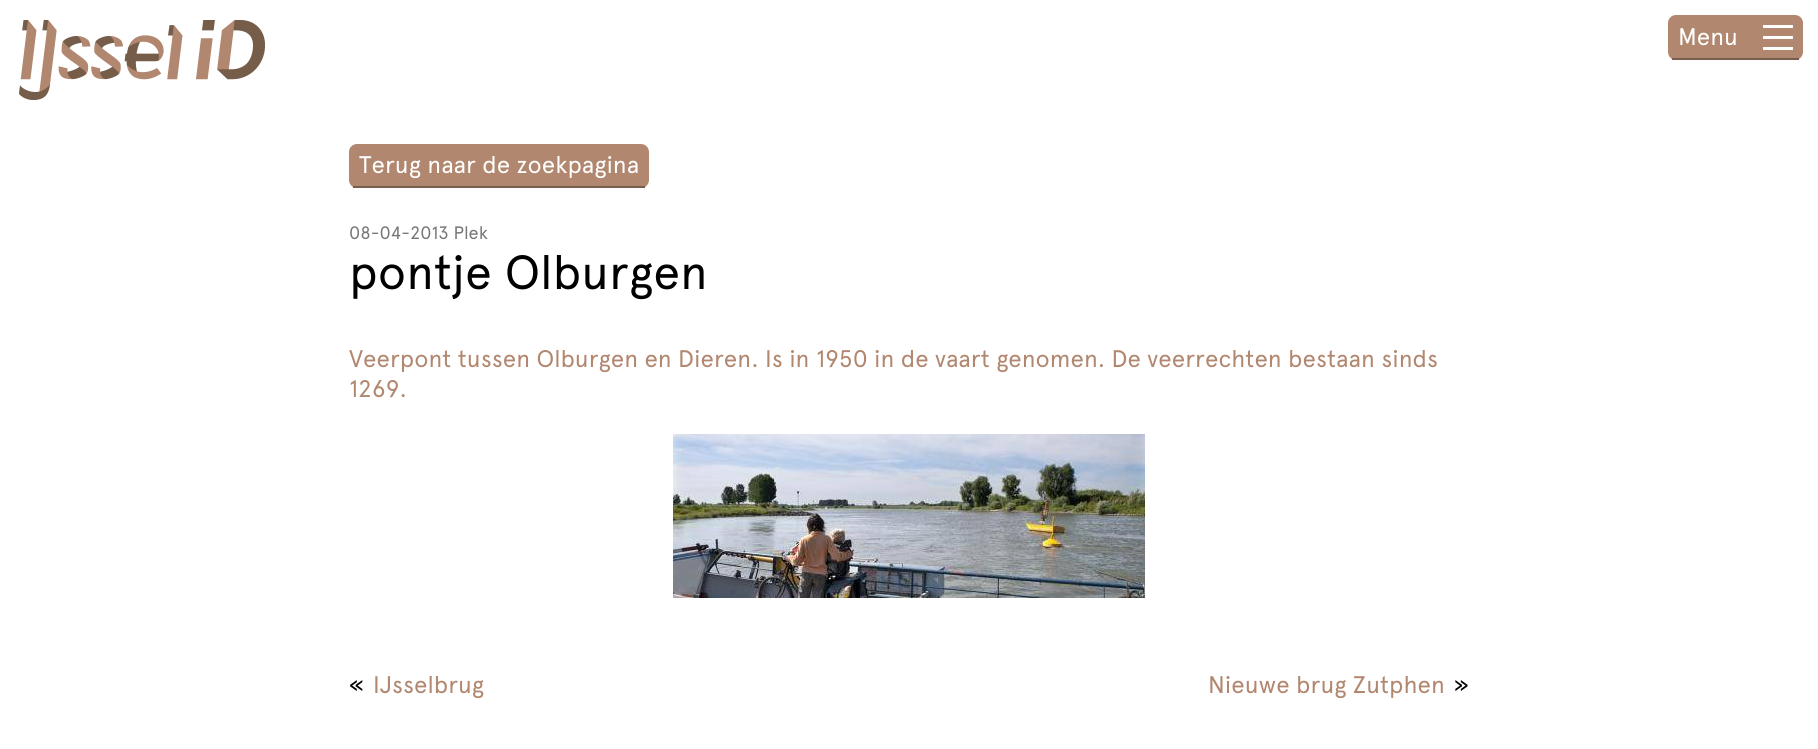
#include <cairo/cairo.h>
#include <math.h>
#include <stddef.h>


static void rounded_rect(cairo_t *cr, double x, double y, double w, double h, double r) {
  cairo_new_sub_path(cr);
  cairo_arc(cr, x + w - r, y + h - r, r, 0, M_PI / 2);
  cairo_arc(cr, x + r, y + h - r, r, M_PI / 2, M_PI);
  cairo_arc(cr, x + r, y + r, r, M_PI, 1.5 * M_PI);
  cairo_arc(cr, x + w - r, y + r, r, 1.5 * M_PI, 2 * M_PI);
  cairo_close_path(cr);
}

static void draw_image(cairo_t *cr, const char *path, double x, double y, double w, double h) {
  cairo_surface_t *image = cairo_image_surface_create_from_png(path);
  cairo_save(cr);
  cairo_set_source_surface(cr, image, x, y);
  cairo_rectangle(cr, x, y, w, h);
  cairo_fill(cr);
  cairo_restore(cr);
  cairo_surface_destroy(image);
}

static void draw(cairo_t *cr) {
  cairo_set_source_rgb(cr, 1, 1, 1);
  cairo_paint(cr);
  draw_image(cr, "images/1.png", 19, 20, 246, 80);
  cairo_set_source_rgb(cr, 178 / 255.0, 135 / 255.0, 111 / 255.0);
  rounded_rect(cr, 1668, 15, 135, 45, 8);
  cairo_fill(cr);
  cairo_set_source_rgb(cr, 119 / 255.0, 93 / 255.0, 74 / 255.0);
  cairo_rectangle(cr, 1672, 58, 127, 2);
  cairo_fill(cr);
  cairo_set_source_rgb(cr, 1, 1, 1);
  cairo_rectangle(cr, 1763, 25, 30, 3);
  cairo_fill(cr);
  cairo_rectangle(cr, 1763, 36, 30, 3);
  cairo_fill(cr);
  cairo_rectangle(cr, 1763, 47, 30, 3);
  cairo_fill(cr);
  cairo_set_source_rgb(cr, 178 / 255.0, 135 / 255.0, 111 / 255.0);
  rounded_rect(cr, 349, 144, 300, 44, 8);
  cairo_fill(cr);
  cairo_set_source_rgb(cr, 119 / 255.0, 93 / 255.0, 74 / 255.0);
  cairo_rectangle(cr, 353, 186, 292, 2);
  cairo_fill(cr);
  draw_image(cr, "images/2.png", 673, 434, 472, 164);
  cairo_select_font_face(cr, "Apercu", CAIRO_FONT_SLANT_NORMAL, CAIRO_FONT_WEIGHT_NORMAL);
  cairo_set_font_size(cr, 24);
  cairo_set_source_rgb(cr, 1, 1, 1);
  cairo_move_to(cr, 1678, 45);
  cairo_show_text(cr, "Menu");
  cairo_move_to(cr, 359, 173);
  cairo_show_text(cr, "Terug naar de zoekpagina");
  cairo_set_font_size(cr, 18);
  cairo_set_source_rgb(cr, 119 / 255.0, 119 / 255.0, 119 / 255.0);
  cairo_move_to(cr, 349, 239);
  cairo_show_text(cr, "08-04-2013 Plek");
  cairo_set_font_size(cr, 48);
  cairo_set_source_rgb(cr, 0, 0, 0);
  cairo_move_to(cr, 349, 289);
  cairo_show_text(cr, "pontje Olburgen");
  cairo_set_font_size(cr, 24);
  cairo_set_source_rgb(cr, 178 / 255.0, 135 / 255.0, 111 / 255.0);
  cairo_move_to(cr, 349, 367);
  cairo_show_text(cr, "Veerpont tussen Olburgen en Dieren. Is in 1950 in de vaart genomen. De veerrechten bestaan sinds");
  cairo_move_to(cr, 349, 397);
  cairo_show_text(cr, "1269.");
  cairo_set_source_rgb(cr, 0, 0, 0);
  cairo_move_to(cr, 349, 693);
  cairo_show_text(cr, "«");
  cairo_set_source_rgb(cr, 178 / 255.0, 135 / 255.0, 111 / 255.0);
  cairo_move_to(cr, 373, 693);
  cairo_show_text(cr, "IJsselbrug");
  cairo_move_to(cr, 1208, 693);
  cairo_show_text(cr, "Nieuwe brug Zutphen");
  cairo_set_source_rgb(cr, 0, 0, 0);
  cairo_move_to(cr, 1454, 693);
  cairo_show_text(cr, "»");
}

int main(void) {
  cairo_surface_t *surface = cairo_image_surface_create(CAIRO_FORMAT_RGB24, 1818, 749);
  cairo_t *cr = cairo_create(surface);
  cairo_font_options_t *options = cairo_font_options_create();
  cairo_font_options_set_hint_metrics(options, CAIRO_HINT_METRICS_OFF);
  cairo_font_options_set_hint_style(options, CAIRO_HINT_STYLE_NONE);
  cairo_set_font_options(cr, options);
  cairo_set_miter_limit(cr, 4);
  draw(cr);
  cairo_surface_write_to_png(surface, "out.png");
  cairo_font_options_destroy(options);
  cairo_destroy(cr);
  cairo_surface_destroy(surface);
  return 0;
}
